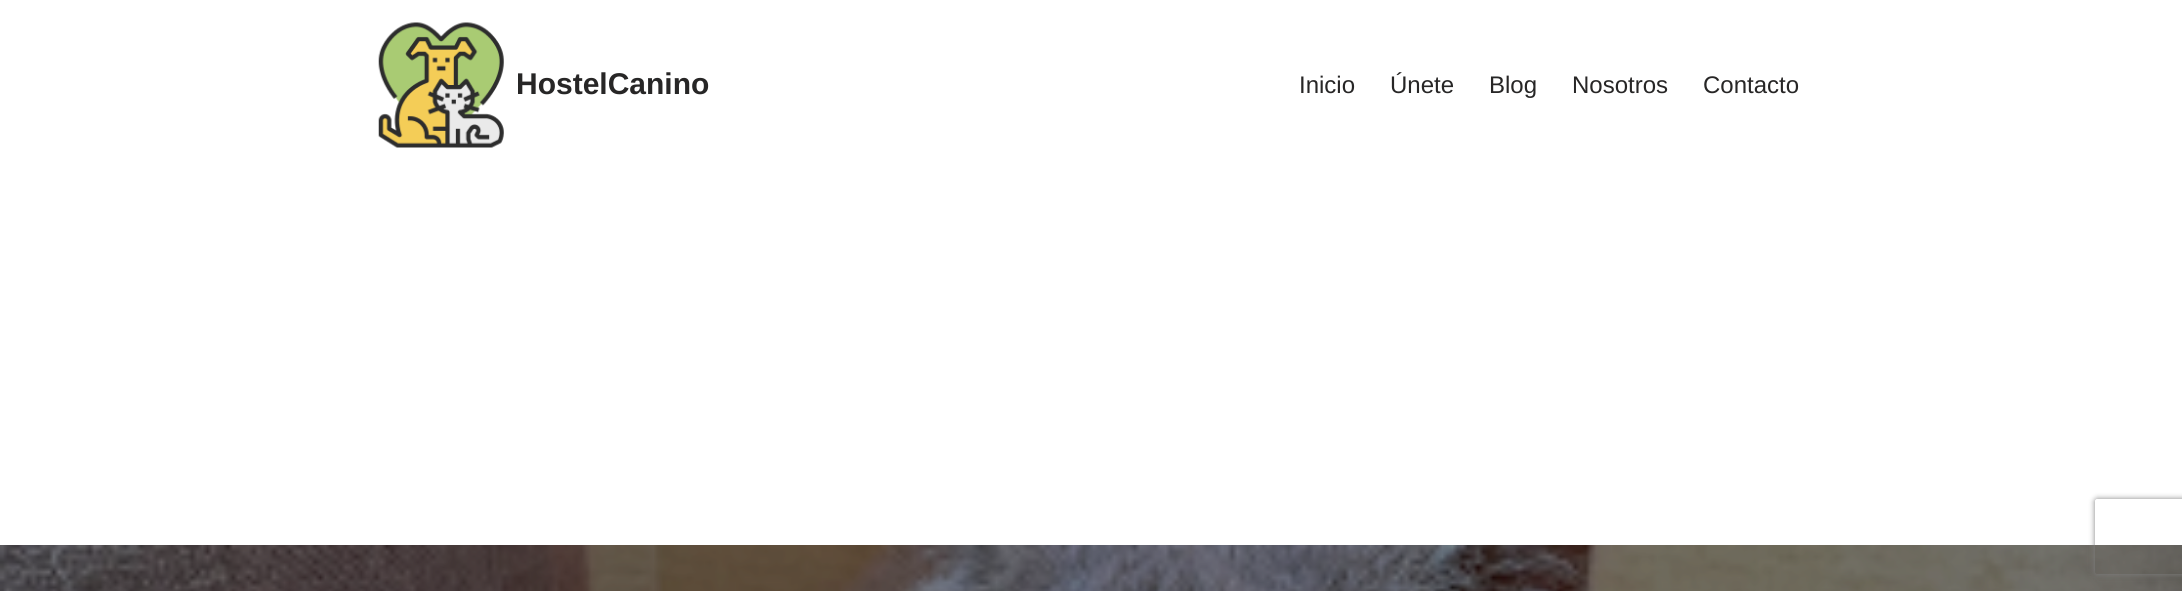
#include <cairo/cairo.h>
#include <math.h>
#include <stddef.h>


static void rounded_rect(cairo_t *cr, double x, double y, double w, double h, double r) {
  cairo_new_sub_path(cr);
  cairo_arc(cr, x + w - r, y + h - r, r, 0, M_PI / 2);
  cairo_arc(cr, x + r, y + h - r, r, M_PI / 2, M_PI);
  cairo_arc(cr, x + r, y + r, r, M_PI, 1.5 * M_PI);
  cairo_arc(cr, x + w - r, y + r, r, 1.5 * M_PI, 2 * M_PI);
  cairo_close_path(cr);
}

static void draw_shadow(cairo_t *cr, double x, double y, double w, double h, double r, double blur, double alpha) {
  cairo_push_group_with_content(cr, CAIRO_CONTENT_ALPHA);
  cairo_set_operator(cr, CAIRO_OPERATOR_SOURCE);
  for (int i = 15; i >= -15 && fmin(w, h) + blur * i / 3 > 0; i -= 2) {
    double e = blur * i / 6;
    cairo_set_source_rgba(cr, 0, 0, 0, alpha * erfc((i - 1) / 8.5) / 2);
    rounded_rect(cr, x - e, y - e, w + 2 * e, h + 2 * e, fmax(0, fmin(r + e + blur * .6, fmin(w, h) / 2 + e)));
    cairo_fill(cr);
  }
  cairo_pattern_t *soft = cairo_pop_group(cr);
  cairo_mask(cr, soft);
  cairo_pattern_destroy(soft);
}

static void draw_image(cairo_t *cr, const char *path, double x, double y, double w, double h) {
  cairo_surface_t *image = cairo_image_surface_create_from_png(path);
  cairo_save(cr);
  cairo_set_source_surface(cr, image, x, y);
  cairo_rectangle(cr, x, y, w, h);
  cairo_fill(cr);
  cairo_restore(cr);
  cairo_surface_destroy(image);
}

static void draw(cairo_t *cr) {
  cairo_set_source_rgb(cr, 1, 1, 1);
  cairo_paint(cr);
  draw_image(cr, "images/1.png", 378, 22, 126, 126);
  draw_image(cr, "images/2.png", 0, 545, 2182, 46);
  cairo_save(cr);
  cairo_set_fill_rule(cr, CAIRO_FILL_RULE_EVEN_ODD);
  cairo_new_path(cr);
  cairo_move_to(cr, 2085, 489);
  cairo_line_to(cr, 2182, 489);
  cairo_line_to(cr, 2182, 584);
  cairo_line_to(cr, 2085, 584);
  cairo_close_path(cr);
  cairo_move_to(cr, 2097.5, 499);
  cairo_line_to(cr, 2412.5, 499);
  cairo_curve_to(cr, 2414, 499, 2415, 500, 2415, 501.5);
  cairo_line_to(cr, 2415, 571.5);
  cairo_curve_to(cr, 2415, 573, 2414, 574, 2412.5, 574);
  cairo_line_to(cr, 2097.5, 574);
  cairo_curve_to(cr, 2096, 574, 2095, 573, 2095, 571.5);
  cairo_line_to(cr, 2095, 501.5);
  cairo_curve_to(cr, 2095, 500, 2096, 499, 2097.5, 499);
  cairo_close_path(cr);
  cairo_clip(cr);
  cairo_set_source_rgb(cr, 128 / 255.0, 128 / 255.0, 128 / 255.0);
  draw_shadow(cr, 2095, 499, 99, 75, 2.5, 3, 1);
  cairo_restore(cr);
  cairo_select_font_face(cr, "Liberation Sans", CAIRO_FONT_SLANT_NORMAL, CAIRO_FONT_WEIGHT_BOLD);
  cairo_set_font_size(cr, 30);
  cairo_set_source_rgb(cr, 39 / 255.0, 38 / 255.0, 38 / 255.0);
  cairo_move_to(cr, 516, 94);
  cairo_show_text(cr, "HostelCanino");
  cairo_select_font_face(cr, "Liberation Sans", CAIRO_FONT_SLANT_NORMAL, CAIRO_FONT_WEIGHT_NORMAL);
  cairo_set_font_size(cr, 24);
  cairo_move_to(cr, 1299, 93);
  cairo_show_text(cr, "Inicio");
  cairo_move_to(cr, 1390, 93);
  cairo_show_text(cr, "Únete");
  cairo_move_to(cr, 1489, 93);
  cairo_show_text(cr, "Blog");
  cairo_move_to(cr, 1572, 93);
  cairo_show_text(cr, "Nosotros");
  cairo_move_to(cr, 1703, 93);
  cairo_show_text(cr, "Contacto");
}

int main(void) {
  cairo_surface_t *surface = cairo_image_surface_create(CAIRO_FORMAT_RGB24, 2182, 591);
  cairo_t *cr = cairo_create(surface);
  cairo_font_options_t *options = cairo_font_options_create();
  cairo_font_options_set_hint_metrics(options, CAIRO_HINT_METRICS_OFF);
  cairo_font_options_set_hint_style(options, CAIRO_HINT_STYLE_NONE);
  cairo_set_font_options(cr, options);
  cairo_set_miter_limit(cr, 4);
  draw(cr);
  cairo_surface_write_to_png(surface, "out.png");
  cairo_font_options_destroy(options);
  cairo_destroy(cr);
  cairo_surface_destroy(surface);
  return 0;
}
